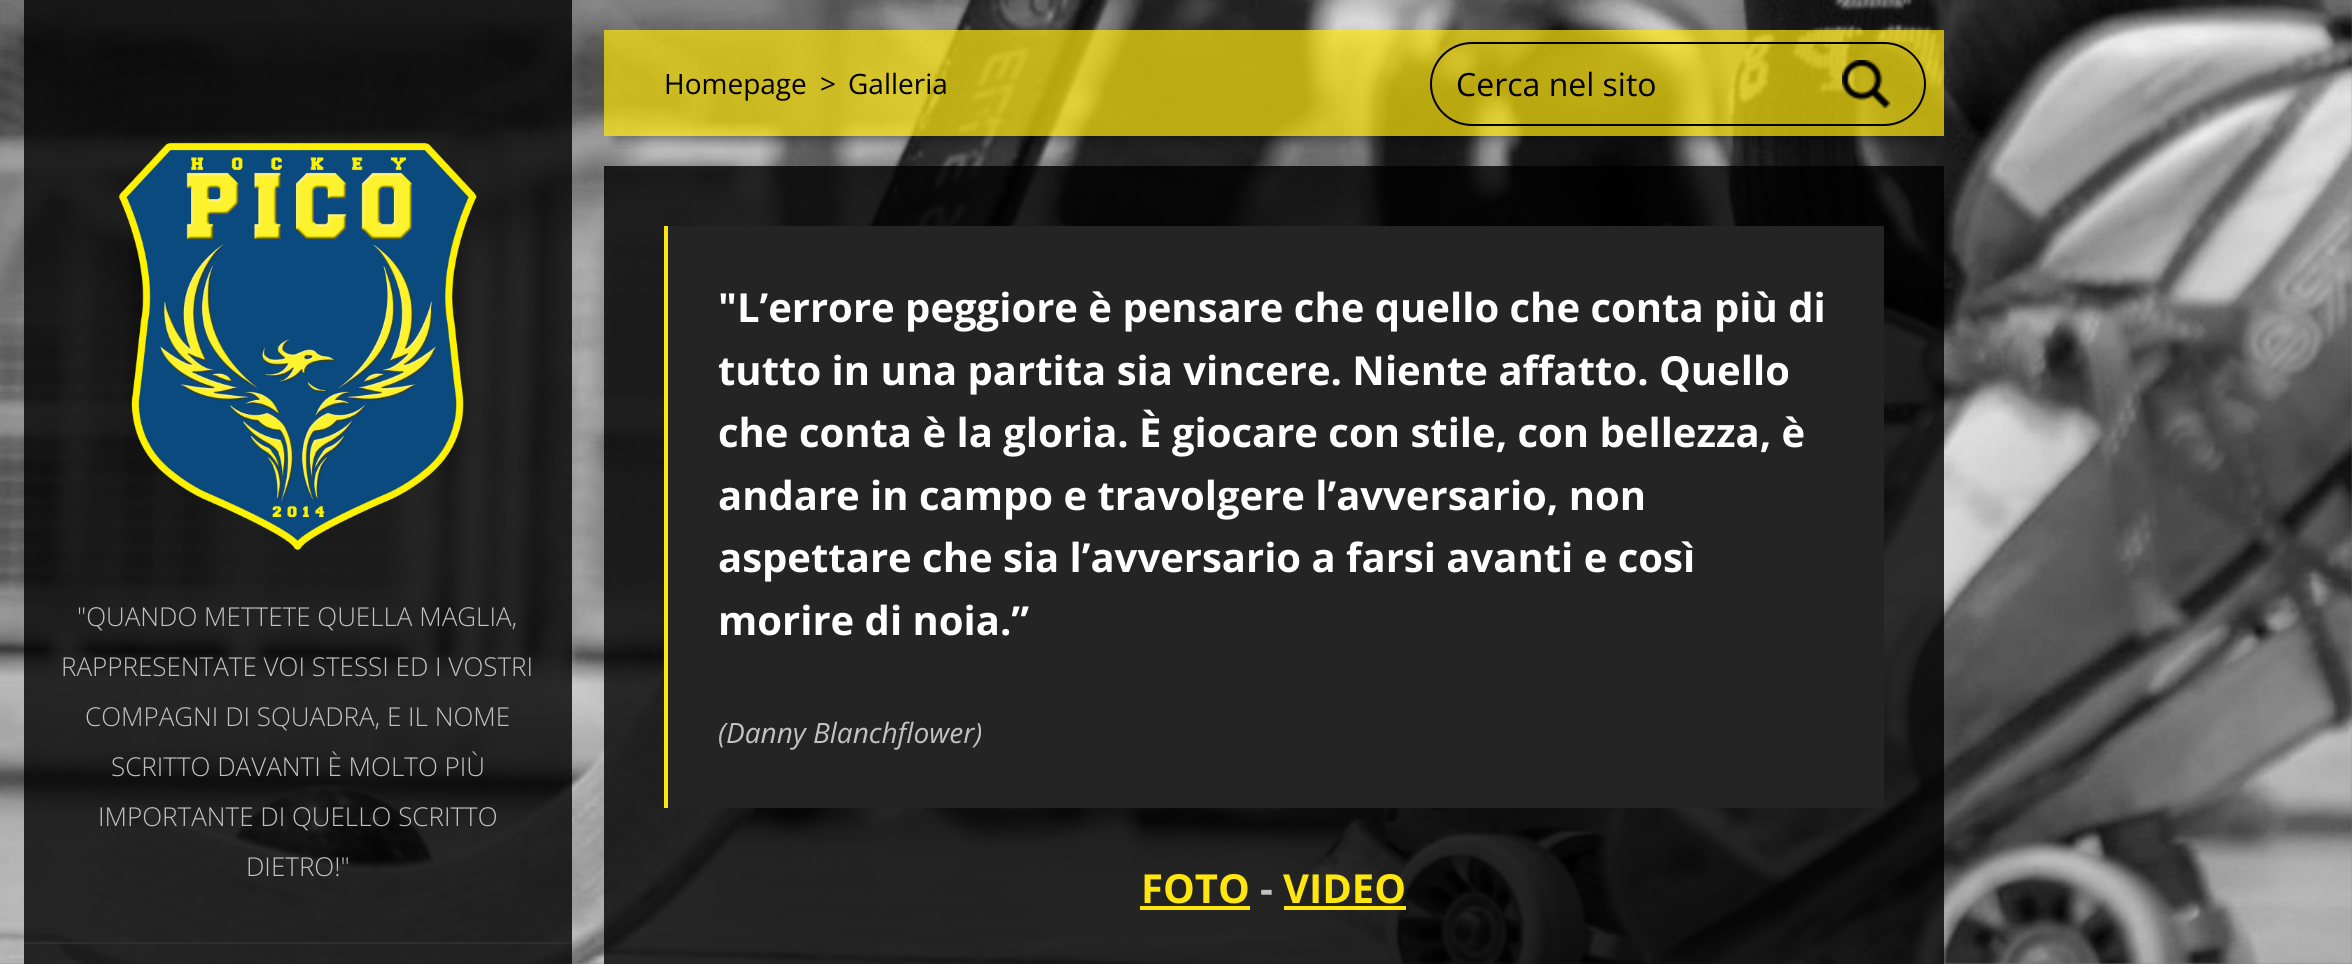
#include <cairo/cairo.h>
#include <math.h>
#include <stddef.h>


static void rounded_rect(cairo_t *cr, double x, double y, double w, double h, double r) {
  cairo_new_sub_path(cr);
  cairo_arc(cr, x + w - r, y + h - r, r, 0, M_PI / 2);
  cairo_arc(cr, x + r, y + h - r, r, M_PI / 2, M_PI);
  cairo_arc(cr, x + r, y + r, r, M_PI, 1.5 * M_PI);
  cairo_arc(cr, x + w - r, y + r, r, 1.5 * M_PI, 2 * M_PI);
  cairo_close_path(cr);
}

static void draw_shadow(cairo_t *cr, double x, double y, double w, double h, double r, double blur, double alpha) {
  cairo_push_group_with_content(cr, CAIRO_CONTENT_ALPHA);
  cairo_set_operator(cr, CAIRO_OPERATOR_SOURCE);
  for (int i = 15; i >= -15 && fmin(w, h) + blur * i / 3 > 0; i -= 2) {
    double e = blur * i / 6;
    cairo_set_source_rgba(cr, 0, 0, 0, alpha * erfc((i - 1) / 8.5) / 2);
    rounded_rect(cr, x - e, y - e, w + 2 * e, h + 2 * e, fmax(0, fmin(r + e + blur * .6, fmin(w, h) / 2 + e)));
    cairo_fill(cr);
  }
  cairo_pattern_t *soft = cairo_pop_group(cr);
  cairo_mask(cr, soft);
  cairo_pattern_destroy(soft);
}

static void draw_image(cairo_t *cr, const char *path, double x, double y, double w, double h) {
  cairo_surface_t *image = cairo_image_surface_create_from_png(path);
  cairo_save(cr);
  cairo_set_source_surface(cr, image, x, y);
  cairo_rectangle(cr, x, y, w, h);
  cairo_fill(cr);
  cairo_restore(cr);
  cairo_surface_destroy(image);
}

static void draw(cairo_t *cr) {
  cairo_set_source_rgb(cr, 123 / 255.0, 133 / 255.0, 119 / 255.0);
  cairo_paint(cr);
  draw_image(cr, "images/1.png", 0, 0, 2352, 964);
  cairo_save(cr);
  cairo_rectangle(cr, 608, 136, 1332, 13);
  cairo_clip(cr);
  cairo_set_source_rgb(cr, 0, 0, 0);
  draw_shadow(cr, 616, 58, 1316, 82, 0, 6, 0.35);
  cairo_restore(cr);
  cairo_set_source_rgba(cr, 1, 230 / 255.0, 15 / 255.0, 0.7);
  cairo_rectangle(cr, 604, 30, 1340, 106);
  cairo_fill(cr);
  rounded_rect(cr, 1431, 43, 494, 82, 41);
  cairo_set_source_rgb(cr, 0, 0, 0);
  cairo_stroke(cr);
  draw_image(cr, "images/2.png", 1842, 60, 48, 48);
  cairo_set_source_rgba(cr, 0, 0, 0, 0.8);
  cairo_rectangle(cr, 24, 0, 548, 592);
  cairo_fill(cr);
  draw_image(cr, "images/3.png", 118, 142, 359, 408);
  cairo_rectangle(cr, 24, 592, 548, 350);
  cairo_fill(cr);
  cairo_rectangle(cr, 24, 944, 548, 20);
  cairo_fill(cr);
  cairo_set_source_rgb(cr, 46 / 255.0, 46 / 255.0, 46 / 255.0);
  cairo_rectangle(cr, 24, 942, 548, 2);
  cairo_fill(cr);
  cairo_set_source_rgba(cr, 0, 0, 0, 0.8);
  cairo_rectangle(cr, 604, 166, 1340, 798);
  cairo_fill(cr);
  cairo_set_source_rgb(cr, 36 / 255.0, 36 / 255.0, 36 / 255.0);
  cairo_rectangle(cr, 668, 226, 1216, 582);
  cairo_fill(cr);
  cairo_set_source_rgb(cr, 1, 230 / 255.0, 15 / 255.0);
  cairo_rectangle(cr, 664, 226, 4, 582);
  cairo_fill(cr);
  cairo_rectangle(cr, 1140, 906, 110, 4);
  cairo_fill(cr);
  cairo_rectangle(cr, 1284, 906, 122, 4);
  cairo_fill(cr);
  cairo_select_font_face(cr, "Open Sans", CAIRO_FONT_SLANT_NORMAL, CAIRO_FONT_WEIGHT_NORMAL);
  cairo_set_font_size(cr, 32);
  cairo_set_source_rgb(cr, 0, 0, 0);
  cairo_move_to(cr, 1456, 96);
  cairo_show_text(cr, "Cerca nel sito");
  cairo_select_font_face(cr, "Open Sans Light", CAIRO_FONT_SLANT_NORMAL, CAIRO_FONT_WEIGHT_NORMAL);
  cairo_set_font_size(cr, 26);
  cairo_set_source_rgb(cr, 194 / 255.0, 194 / 255.0, 194 / 255.0);
  cairo_move_to(cr, 77, 626);
  cairo_show_text(cr, "\"QUANDO METTETE QUELLA MAGLIA,");
  cairo_move_to(cr, 61, 676);
  cairo_show_text(cr, "RAPPRESENTATE VOI STESSI ED I VOSTRI");
  cairo_move_to(cr, 85, 726);
  cairo_show_text(cr, "COMPAGNI DI SQUADRA, E IL NOME");
  cairo_move_to(cr, 111, 776);
  cairo_show_text(cr, "SCRITTO DAVANTI È MOLTO PIÙ");
  cairo_move_to(cr, 98, 826);
  cairo_show_text(cr, "IMPORTANTE DI QUELLO SCRITTO");
  cairo_move_to(cr, 246, 876);
  cairo_show_text(cr, "DIETRO!\"");
  cairo_select_font_face(cr, "Open Sans", CAIRO_FONT_SLANT_NORMAL, CAIRO_FONT_WEIGHT_NORMAL);
  cairo_set_font_size(cr, 28);
  cairo_set_source_rgb(cr, 0, 0, 0);
  cairo_move_to(cr, 664, 94);
  cairo_show_text(cr, "Homepage");
  cairo_move_to(cr, 820, 94);
  cairo_show_text(cr, ">");
  cairo_move_to(cr, 848, 94);
  cairo_show_text(cr, "Galleria");
  cairo_select_font_face(cr, "Open Sans", CAIRO_FONT_SLANT_NORMAL, CAIRO_FONT_WEIGHT_BOLD);
  cairo_set_font_size(cr, 40);
  cairo_set_source_rgb(cr, 1, 1, 1);
  cairo_move_to(cr, 718, 322);
  cairo_show_text(cr, "\"L’errore peggiore è pensare che quello che conta più di");
  cairo_move_to(cr, 718, 385);
  cairo_show_text(cr, "tutto in una partita sia vincere. Niente affatto. Quello");
  cairo_move_to(cr, 718, 447);
  cairo_show_text(cr, "che conta è la gloria. È giocare con stile, con bellezza, è");
  cairo_move_to(cr, 718, 510);
  cairo_show_text(cr, "andare in campo e travolgere l’avversario, non");
  cairo_move_to(cr, 718, 572);
  cairo_show_text(cr, "aspettare che sia l’avversario a farsi avanti e così");
  cairo_move_to(cr, 718, 635);
  cairo_show_text(cr, "morire di noia.”");
  cairo_select_font_face(cr, "Open Sans", CAIRO_FONT_SLANT_ITALIC, CAIRO_FONT_WEIGHT_NORMAL);
  cairo_set_font_size(cr, 28);
  cairo_set_source_rgb(cr, 194 / 255.0, 194 / 255.0, 194 / 255.0);
  cairo_move_to(cr, 718, 743);
  cairo_show_text(cr, "(Danny Blanchflower)");
  cairo_select_font_face(cr, "Open Sans", CAIRO_FONT_SLANT_NORMAL, CAIRO_FONT_WEIGHT_BOLD);
  cairo_set_font_size(cr, 40);
  cairo_set_source_rgb(cr, 1, 230 / 255.0, 15 / 255.0);
  cairo_move_to(cr, 1141, 903);
  cairo_show_text(cr, "FOTO");
  cairo_set_source_rgb(cr, 194 / 255.0, 194 / 255.0, 194 / 255.0);
  cairo_move_to(cr, 1260, 903);
  cairo_show_text(cr, "-");
  cairo_set_source_rgb(cr, 1, 230 / 255.0, 15 / 255.0);
  cairo_move_to(cr, 1283, 903);
  cairo_show_text(cr, "VIDEO");
}

int main(void) {
  cairo_surface_t *surface = cairo_image_surface_create(CAIRO_FORMAT_RGB24, 2352, 964);
  cairo_t *cr = cairo_create(surface);
  cairo_font_options_t *options = cairo_font_options_create();
  cairo_font_options_set_hint_metrics(options, CAIRO_HINT_METRICS_OFF);
  cairo_font_options_set_hint_style(options, CAIRO_HINT_STYLE_NONE);
  cairo_set_font_options(cr, options);
  cairo_set_miter_limit(cr, 4);
  draw(cr);
  cairo_surface_write_to_png(surface, "out.png");
  cairo_font_options_destroy(options);
  cairo_destroy(cr);
  cairo_surface_destroy(surface);
  return 0;
}
